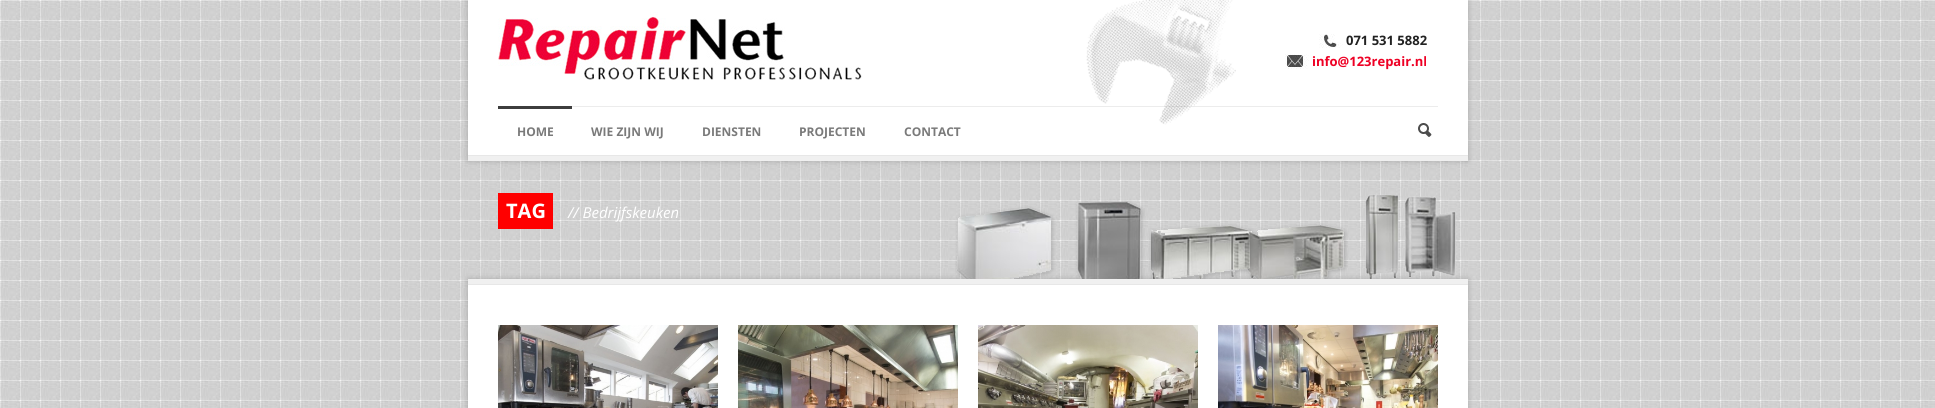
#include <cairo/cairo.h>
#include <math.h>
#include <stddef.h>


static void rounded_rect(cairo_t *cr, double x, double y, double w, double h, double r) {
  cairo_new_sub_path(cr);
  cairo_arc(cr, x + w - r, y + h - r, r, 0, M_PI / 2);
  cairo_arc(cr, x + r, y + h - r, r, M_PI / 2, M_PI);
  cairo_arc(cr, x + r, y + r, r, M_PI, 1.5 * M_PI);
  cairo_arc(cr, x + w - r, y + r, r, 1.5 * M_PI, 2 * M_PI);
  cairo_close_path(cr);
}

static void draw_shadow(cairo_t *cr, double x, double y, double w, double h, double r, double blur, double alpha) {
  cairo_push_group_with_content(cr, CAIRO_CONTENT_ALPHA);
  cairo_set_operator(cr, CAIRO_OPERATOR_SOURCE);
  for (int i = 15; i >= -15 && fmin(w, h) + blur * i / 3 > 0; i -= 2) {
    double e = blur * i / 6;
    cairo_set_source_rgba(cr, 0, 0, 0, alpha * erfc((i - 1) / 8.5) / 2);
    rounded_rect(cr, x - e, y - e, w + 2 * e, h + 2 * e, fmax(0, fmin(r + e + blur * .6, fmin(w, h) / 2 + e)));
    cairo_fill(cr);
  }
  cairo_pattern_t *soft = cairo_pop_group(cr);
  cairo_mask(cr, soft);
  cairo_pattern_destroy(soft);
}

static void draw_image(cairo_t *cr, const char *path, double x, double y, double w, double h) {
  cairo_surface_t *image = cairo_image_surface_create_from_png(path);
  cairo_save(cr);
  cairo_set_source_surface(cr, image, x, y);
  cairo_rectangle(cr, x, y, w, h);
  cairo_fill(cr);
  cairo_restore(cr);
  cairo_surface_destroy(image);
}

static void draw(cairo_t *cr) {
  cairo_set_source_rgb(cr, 1, 1, 1);
  cairo_paint(cr);
  draw_image(cr, "images/1.png", 0, 0, 1935, 408);
  cairo_set_source_rgb(cr, 0, 0, 0);
  draw_shadow(cr, 468, 0, 1000, 161, 0, 3, 0.2);
  cairo_set_source_rgb(cr, 1, 1, 1);
  cairo_rectangle(cr, 468, 0, 1000, 155);
  cairo_fill(cr);
  draw_image(cr, "images/2.png", 498, 12, 364, 68);
  cairo_set_source_rgb(cr, 236 / 255.0, 236 / 255.0, 236 / 255.0);
  cairo_rectangle(cr, 572, 106, 866, 1);
  cairo_fill(cr);
  draw_image(cr, "images/3.png", 1086, 0, 150, 125);
  draw_image(cr, "images/4.png", 1319, 34, 24, 14);
  draw_image(cr, "images/5.png", 1285, 54, 24, 15);
  cairo_set_source_rgb(cr, 61 / 255.0, 61 / 255.0, 61 / 255.0);
  cairo_rectangle(cr, 498, 106, 74, 3);
  cairo_fill(cr);
  draw_image(cr, "images/6.png", 1418, 123, 14, 14);
  cairo_set_source_rgb(cr, 240 / 255.0, 240 / 255.0, 240 / 255.0);
  cairo_rectangle(cr, 468, 156, 1000, 5);
  cairo_fill(cr);
  cairo_set_source_rgb(cr, 231 / 255.0, 231 / 255.0, 231 / 255.0);
  cairo_rectangle(cr, 468, 155, 1000, 1);
  cairo_fill(cr);
  cairo_set_source_rgb(cr, 0, 0, 0);
  draw_shadow(cr, 468, 279, 1000, 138, 0, 3, 0.2);
  draw_image(cr, "images/7.png", 955, 190, 504, 89);
  cairo_set_source_rgb(cr, 1, 0, 0);
  cairo_rectangle(cr, 498, 193, 55, 36);
  cairo_fill(cr);
  cairo_set_source_rgb(cr, 240 / 255.0, 240 / 255.0, 240 / 255.0);
  cairo_rectangle(cr, 468, 279, 1000, 5);
  cairo_fill(cr);
  cairo_set_source_rgb(cr, 231 / 255.0, 231 / 255.0, 231 / 255.0);
  cairo_rectangle(cr, 468, 284, 1000, 1);
  cairo_fill(cr);
  cairo_set_source_rgb(cr, 1, 1, 1);
  cairo_rectangle(cr, 468, 285, 1000, 123);
  cairo_fill(cr);
  draw_image(cr, "images/8.png", 498, 325, 220, 83);
  draw_image(cr, "images/9.png", 738, 325, 220, 83);
  draw_image(cr, "images/10.png", 978, 325, 220, 83);
  draw_image(cr, "images/11.png", 1218, 325, 220, 83);
  cairo_select_font_face(cr, "Open Sans", CAIRO_FONT_SLANT_NORMAL, CAIRO_FONT_WEIGHT_BOLD);
  cairo_set_font_size(cr, 13);
  cairo_set_source_rgb(cr, 34 / 255.0, 34 / 255.0, 34 / 255.0);
  cairo_move_to(cr, 1346, 45);
  cairo_show_text(cr, "071 531 5882");
  cairo_set_source_rgb(cr, 238 / 255.0, 0, 36 / 255.0);
  cairo_move_to(cr, 1312, 66);
  cairo_show_text(cr, "info@123repair.nl");
  cairo_set_font_size(cr, 12);
  cairo_set_source_rgb(cr, 122 / 255.0, 122 / 255.0, 122 / 255.0);
  cairo_move_to(cr, 517, 136);
  cairo_show_text(cr, "HOME");
  cairo_move_to(cr, 591, 136);
  cairo_show_text(cr, "WIE ZIJN WIJ");
  cairo_move_to(cr, 702, 136);
  cairo_show_text(cr, "DIENSTEN");
  cairo_move_to(cr, 799, 136);
  cairo_show_text(cr, "PROJECTEN");
  cairo_move_to(cr, 904, 136);
  cairo_show_text(cr, "CONTACT");
  cairo_set_font_size(cr, 20);
  cairo_set_source_rgb(cr, 1, 1, 1);
  cairo_move_to(cr, 506, 218);
  cairo_show_text(cr, "TAG");
  cairo_select_font_face(cr, "Open Sans", CAIRO_FONT_SLANT_ITALIC, CAIRO_FONT_WEIGHT_NORMAL);
  cairo_set_font_size(cr, 15);
  cairo_move_to(cr, 568, 218);
  cairo_show_text(cr, "// Bedrijfskeuken");
}

int main(void) {
  cairo_surface_t *surface = cairo_image_surface_create(CAIRO_FORMAT_RGB24, 1935, 408);
  cairo_t *cr = cairo_create(surface);
  cairo_font_options_t *options = cairo_font_options_create();
  cairo_font_options_set_hint_metrics(options, CAIRO_HINT_METRICS_OFF);
  cairo_font_options_set_hint_style(options, CAIRO_HINT_STYLE_NONE);
  cairo_set_font_options(cr, options);
  cairo_set_miter_limit(cr, 4);
  draw(cr);
  cairo_surface_write_to_png(surface, "out.png");
  cairo_font_options_destroy(options);
  cairo_destroy(cr);
  cairo_surface_destroy(surface);
  return 0;
}
